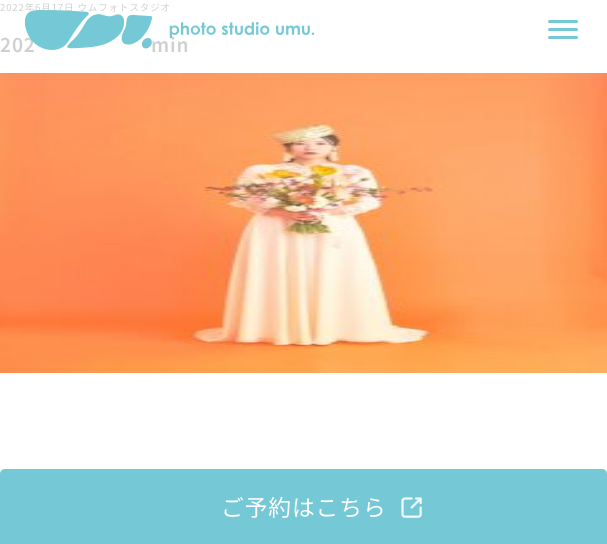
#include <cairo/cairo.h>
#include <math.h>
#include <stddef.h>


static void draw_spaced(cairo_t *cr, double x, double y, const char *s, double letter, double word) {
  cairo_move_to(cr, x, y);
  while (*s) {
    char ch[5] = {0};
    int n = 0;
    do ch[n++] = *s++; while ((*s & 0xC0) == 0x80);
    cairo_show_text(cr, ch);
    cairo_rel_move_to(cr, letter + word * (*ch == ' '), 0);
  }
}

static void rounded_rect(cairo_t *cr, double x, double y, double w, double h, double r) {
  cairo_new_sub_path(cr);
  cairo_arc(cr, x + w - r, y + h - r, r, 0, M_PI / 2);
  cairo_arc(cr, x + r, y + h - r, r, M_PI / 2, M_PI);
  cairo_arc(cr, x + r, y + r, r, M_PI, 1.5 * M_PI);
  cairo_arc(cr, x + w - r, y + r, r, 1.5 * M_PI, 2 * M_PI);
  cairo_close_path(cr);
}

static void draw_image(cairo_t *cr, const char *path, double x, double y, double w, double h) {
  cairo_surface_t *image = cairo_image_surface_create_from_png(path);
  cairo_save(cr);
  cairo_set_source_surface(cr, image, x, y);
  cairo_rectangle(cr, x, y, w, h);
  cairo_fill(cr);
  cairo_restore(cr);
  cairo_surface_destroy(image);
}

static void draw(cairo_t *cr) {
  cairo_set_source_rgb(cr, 1, 1, 1);
  cairo_paint(cr);
  draw_image(cr, "images/1.png", 0, 73, 607, 300);
  cairo_set_source_rgb(cr, 117 / 255.0, 200 / 255.0, 213 / 255.0);
  rounded_rect(cr, 548, 20, 30, 3, 1.5);
  cairo_fill(cr);
  rounded_rect(cr, 548, 28, 30, 3, 1.5);
  cairo_fill(cr);
  rounded_rect(cr, 548, 36, 30, 3, 1.5);
  cairo_fill(cr);
  cairo_new_path(cr);
  cairo_move_to(cr, 5, 469);
  cairo_line_to(cr, 602, 469);
  cairo_curve_to(cr, 605, 469, 607, 471, 607, 474);
  cairo_line_to(cr, 607, 544);
  cairo_line_to(cr, 0, 544);
  cairo_line_to(cr, 0, 474);
  cairo_curve_to(cr, 0, 471, 2, 469, 5, 469);
  cairo_close_path(cr);
  cairo_fill(cr);
  draw_image(cr, "images/4.png", 401, 497, 21, 21);
  cairo_select_font_face(cr, "Noto Sans JP", CAIRO_FONT_SLANT_NORMAL, CAIRO_FONT_WEIGHT_NORMAL);
  cairo_set_font_size(cr, 9.5);
  cairo_set_source_rgb(cr, 206 / 255.0, 208 / 255.0, 208 / 255.0);
  draw_spaced(cr, 0, 11, "2022年6月17日 ウムフォトスタジオ", 0.9, 0);
  cairo_select_font_face(cr, "Noto Sans JP SemiBold", CAIRO_FONT_SLANT_NORMAL, CAIRO_FONT_WEIGHT_NORMAL);
  cairo_set_font_size(cr, 19);
  draw_spaced(cr, 0, 52, "202", 0.9, 0);
  draw_spaced(cr, 151, 52, "min", 0.9, 0);
  draw_image(cr, "images/2.png", 24, 10, 129, 40);
  draw_image(cr, "images/3.png", 169, 22, 146, 16);
  cairo_select_font_face(cr, "Noto Sans JP", CAIRO_FONT_SLANT_NORMAL, CAIRO_FONT_WEIGHT_NORMAL);
  cairo_set_font_size(cr, 22.75);
  cairo_set_source_rgb(cr, 1, 1, 1);
  draw_spaced(cr, 221, 516, "ご予約はこちら", 0.9, 0);
}

int main(void) {
  cairo_surface_t *surface = cairo_image_surface_create(CAIRO_FORMAT_RGB24, 607, 544);
  cairo_t *cr = cairo_create(surface);
  cairo_font_options_t *options = cairo_font_options_create();
  cairo_font_options_set_hint_metrics(options, CAIRO_HINT_METRICS_OFF);
  cairo_font_options_set_hint_style(options, CAIRO_HINT_STYLE_NONE);
  cairo_set_font_options(cr, options);
  cairo_set_miter_limit(cr, 4);
  draw(cr);
  cairo_surface_write_to_png(surface, "out.png");
  cairo_font_options_destroy(options);
  cairo_destroy(cr);
  cairo_surface_destroy(surface);
  return 0;
}
